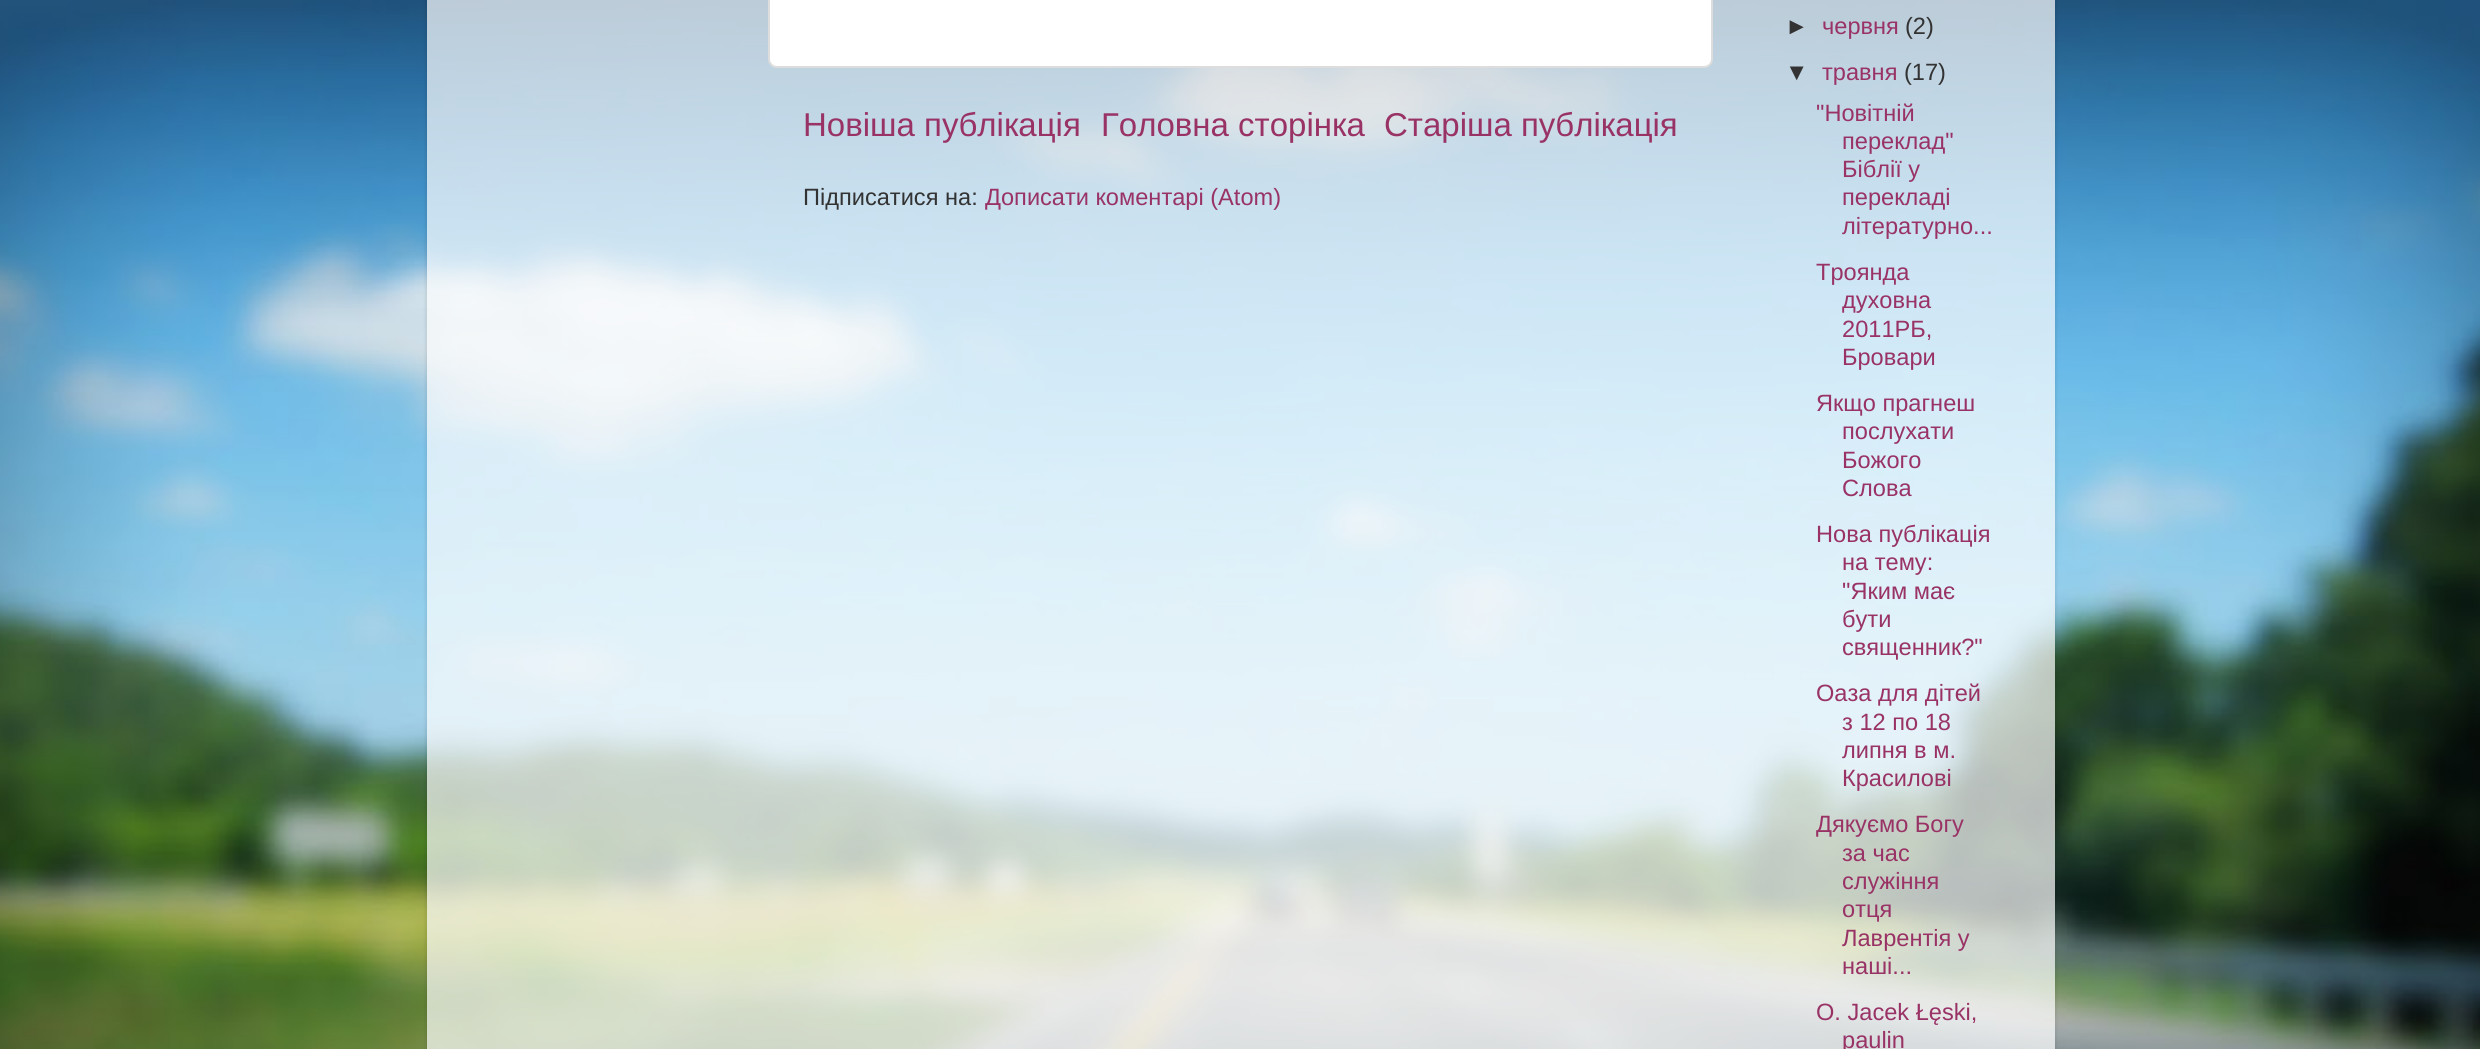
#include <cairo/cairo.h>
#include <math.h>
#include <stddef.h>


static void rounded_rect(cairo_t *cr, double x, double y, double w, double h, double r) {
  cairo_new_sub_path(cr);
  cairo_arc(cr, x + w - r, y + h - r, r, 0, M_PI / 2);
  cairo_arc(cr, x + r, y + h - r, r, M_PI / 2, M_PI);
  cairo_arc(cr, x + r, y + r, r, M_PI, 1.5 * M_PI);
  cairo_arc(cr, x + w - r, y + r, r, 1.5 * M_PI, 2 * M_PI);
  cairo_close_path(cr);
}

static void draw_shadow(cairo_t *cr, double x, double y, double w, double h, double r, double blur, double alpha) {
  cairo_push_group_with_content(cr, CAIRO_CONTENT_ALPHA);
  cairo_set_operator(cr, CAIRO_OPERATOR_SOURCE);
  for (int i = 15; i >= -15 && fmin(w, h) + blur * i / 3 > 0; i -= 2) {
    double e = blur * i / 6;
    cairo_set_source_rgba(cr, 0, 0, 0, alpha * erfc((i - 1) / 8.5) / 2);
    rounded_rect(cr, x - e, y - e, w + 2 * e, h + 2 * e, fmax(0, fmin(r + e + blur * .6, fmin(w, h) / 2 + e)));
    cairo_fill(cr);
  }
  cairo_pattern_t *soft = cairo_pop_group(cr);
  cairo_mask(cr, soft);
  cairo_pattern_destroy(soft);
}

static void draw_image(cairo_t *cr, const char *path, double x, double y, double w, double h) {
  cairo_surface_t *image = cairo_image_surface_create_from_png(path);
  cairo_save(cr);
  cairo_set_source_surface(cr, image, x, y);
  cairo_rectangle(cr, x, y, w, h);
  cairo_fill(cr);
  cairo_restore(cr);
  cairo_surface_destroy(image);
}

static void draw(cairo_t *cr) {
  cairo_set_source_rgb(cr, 1, 1, 1);
  cairo_paint(cr);
  draw_image(cr, "images/1.png", 0, 0, 2480, 1049);
  cairo_save(cr);
  cairo_set_fill_rule(cr, CAIRO_FILL_RULE_EVEN_ODD);
  cairo_new_path(cr);
  cairo_move_to(cr, 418, 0);
  cairo_line_to(cr, 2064, 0);
  cairo_line_to(cr, 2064, 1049);
  cairo_line_to(cr, 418, 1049);
  cairo_close_path(cr);
  cairo_move_to(cr, 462, -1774);
  cairo_line_to(cr, 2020, -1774);
  cairo_curve_to(cr, 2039.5, -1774, 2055, -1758.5, 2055, -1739);
  cairo_line_to(cr, 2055, 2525);
  cairo_line_to(cr, 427, 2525);
  cairo_line_to(cr, 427, -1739);
  cairo_curve_to(cr, 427, -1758.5, 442.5, -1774, 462, -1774);
  cairo_close_path(cr);
  cairo_clip(cr);
  cairo_set_source_rgb(cr, 0, 0, 0);
  draw_shadow(cr, 427, -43, 1628, 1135, 35, 2.5, 0.15);
  cairo_restore(cr);
  cairo_set_source_rgba(cr, 1, 1, 1, 0.7);
  cairo_rectangle(cr, 427, 0, 1628, 1049);
  cairo_fill(cr);
  cairo_set_source_rgb(cr, 1, 1, 1);
  rounded_rect(cr, 769, -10, 943, 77, 8);
  cairo_fill_preserve(cr);
  cairo_set_source_rgb(cr, 221 / 255.0, 221 / 255.0, 221 / 255.0);
  cairo_stroke(cr);
  cairo_select_font_face(cr, "Liberation Sans", CAIRO_FONT_SLANT_NORMAL, CAIRO_FONT_WEIGHT_NORMAL);
  cairo_set_font_size(cr, 33);
  cairo_set_source_rgb(cr, 153 / 255.0, 51 / 255.0, 102 / 255.0);
  cairo_move_to(cr, 803, 136);
  cairo_show_text(cr, "Новіша публікація");
  cairo_move_to(cr, 1101, 136);
  cairo_show_text(cr, "Головна сторінка");
  cairo_move_to(cr, 1384, 136);
  cairo_show_text(cr, "Старіша публікація");
  cairo_set_font_size(cr, 23.6);
  cairo_set_source_rgb(cr, 51 / 255.0, 51 / 255.0, 51 / 255.0);
  cairo_move_to(cr, 803, 205);
  cairo_show_text(cr, "Підписатися на:");
  cairo_set_source_rgb(cr, 153 / 255.0, 51 / 255.0, 102 / 255.0);
  cairo_move_to(cr, 985, 205);
  cairo_show_text(cr, "Дописати коментарі (Atom)");
  cairo_set_source_rgb(cr, 51 / 255.0, 51 / 255.0, 51 / 255.0);
  cairo_move_to(cr, 1785, 34);
  cairo_show_text(cr, "►");
  cairo_set_source_rgb(cr, 153 / 255.0, 51 / 255.0, 102 / 255.0);
  cairo_move_to(cr, 1822, 34);
  cairo_show_text(cr, "червня");
  cairo_set_source_rgb(cr, 51 / 255.0, 51 / 255.0, 51 / 255.0);
  cairo_move_to(cr, 1905, 34);
  cairo_show_text(cr, "(2)");
  cairo_move_to(cr, 1785, 80);
  cairo_show_text(cr, "▼");
  cairo_set_source_rgb(cr, 153 / 255.0, 51 / 255.0, 102 / 255.0);
  cairo_move_to(cr, 1822, 80);
  cairo_show_text(cr, "травня");
  cairo_set_source_rgb(cr, 51 / 255.0, 51 / 255.0, 51 / 255.0);
  cairo_move_to(cr, 1904, 80);
  cairo_show_text(cr, "(17)");
  cairo_set_source_rgb(cr, 153 / 255.0, 51 / 255.0, 102 / 255.0);
  cairo_move_to(cr, 1816, 121);
  cairo_show_text(cr, "\"Новітній");
  cairo_move_to(cr, 1842, 149);
  cairo_show_text(cr, "переклад\"");
  cairo_move_to(cr, 1842, 177);
  cairo_show_text(cr, "Біблії у");
  cairo_move_to(cr, 1842, 205);
  cairo_show_text(cr, "перекладі");
  cairo_move_to(cr, 1842, 234);
  cairo_show_text(cr, "літературно...");
  cairo_move_to(cr, 1816, 280);
  cairo_show_text(cr, "Троянда");
  cairo_move_to(cr, 1842, 308);
  cairo_show_text(cr, "духовна");
  cairo_move_to(cr, 1842, 337);
  cairo_show_text(cr, "2011РБ,");
  cairo_move_to(cr, 1842, 365);
  cairo_show_text(cr, "Бровари");
  cairo_move_to(cr, 1816, 411);
  cairo_show_text(cr, "Якщо прагнеш");
  cairo_move_to(cr, 1842, 439);
  cairo_show_text(cr, "послухати");
  cairo_move_to(cr, 1842, 468);
  cairo_show_text(cr, "Божого");
  cairo_move_to(cr, 1842, 496);
  cairo_show_text(cr, "Слова");
  cairo_move_to(cr, 1816, 542);
  cairo_show_text(cr, "Нова публікація");
  cairo_move_to(cr, 1842, 570);
  cairo_show_text(cr, "на тему:");
  cairo_move_to(cr, 1842, 599);
  cairo_show_text(cr, "\"Яким має");
  cairo_move_to(cr, 1842, 627);
  cairo_show_text(cr, "бути");
  cairo_move_to(cr, 1842, 655);
  cairo_show_text(cr, "священник?\"");
  cairo_move_to(cr, 1816, 701);
  cairo_show_text(cr, "Оаза для дітей");
  cairo_move_to(cr, 1842, 730);
  cairo_show_text(cr, "з 12 по 18");
  cairo_move_to(cr, 1842, 758);
  cairo_show_text(cr, "липня в м.");
  cairo_move_to(cr, 1842, 786);
  cairo_show_text(cr, "Красилові");
  cairo_move_to(cr, 1816, 832);
  cairo_show_text(cr, "Дякуємо Богу");
  cairo_move_to(cr, 1842, 861);
  cairo_show_text(cr, "за час");
  cairo_move_to(cr, 1842, 889);
  cairo_show_text(cr, "служіння");
  cairo_move_to(cr, 1842, 917);
  cairo_show_text(cr, "отця");
  cairo_move_to(cr, 1842, 946);
  cairo_show_text(cr, "Лаврентія у");
  cairo_move_to(cr, 1842, 974);
  cairo_show_text(cr, "наші...");
  cairo_move_to(cr, 1816, 1020);
  cairo_show_text(cr, "O. Jacek Łęski,");
  cairo_move_to(cr, 1842, 1048);
  cairo_show_text(cr, "paulin");
}

int main(void) {
  cairo_surface_t *surface = cairo_image_surface_create(CAIRO_FORMAT_RGB24, 2480, 1049);
  cairo_t *cr = cairo_create(surface);
  cairo_font_options_t *options = cairo_font_options_create();
  cairo_font_options_set_hint_metrics(options, CAIRO_HINT_METRICS_OFF);
  cairo_font_options_set_hint_style(options, CAIRO_HINT_STYLE_NONE);
  cairo_set_font_options(cr, options);
  cairo_set_miter_limit(cr, 4);
  draw(cr);
  cairo_surface_write_to_png(surface, "out.png");
  cairo_font_options_destroy(options);
  cairo_destroy(cr);
  cairo_surface_destroy(surface);
  return 0;
}
